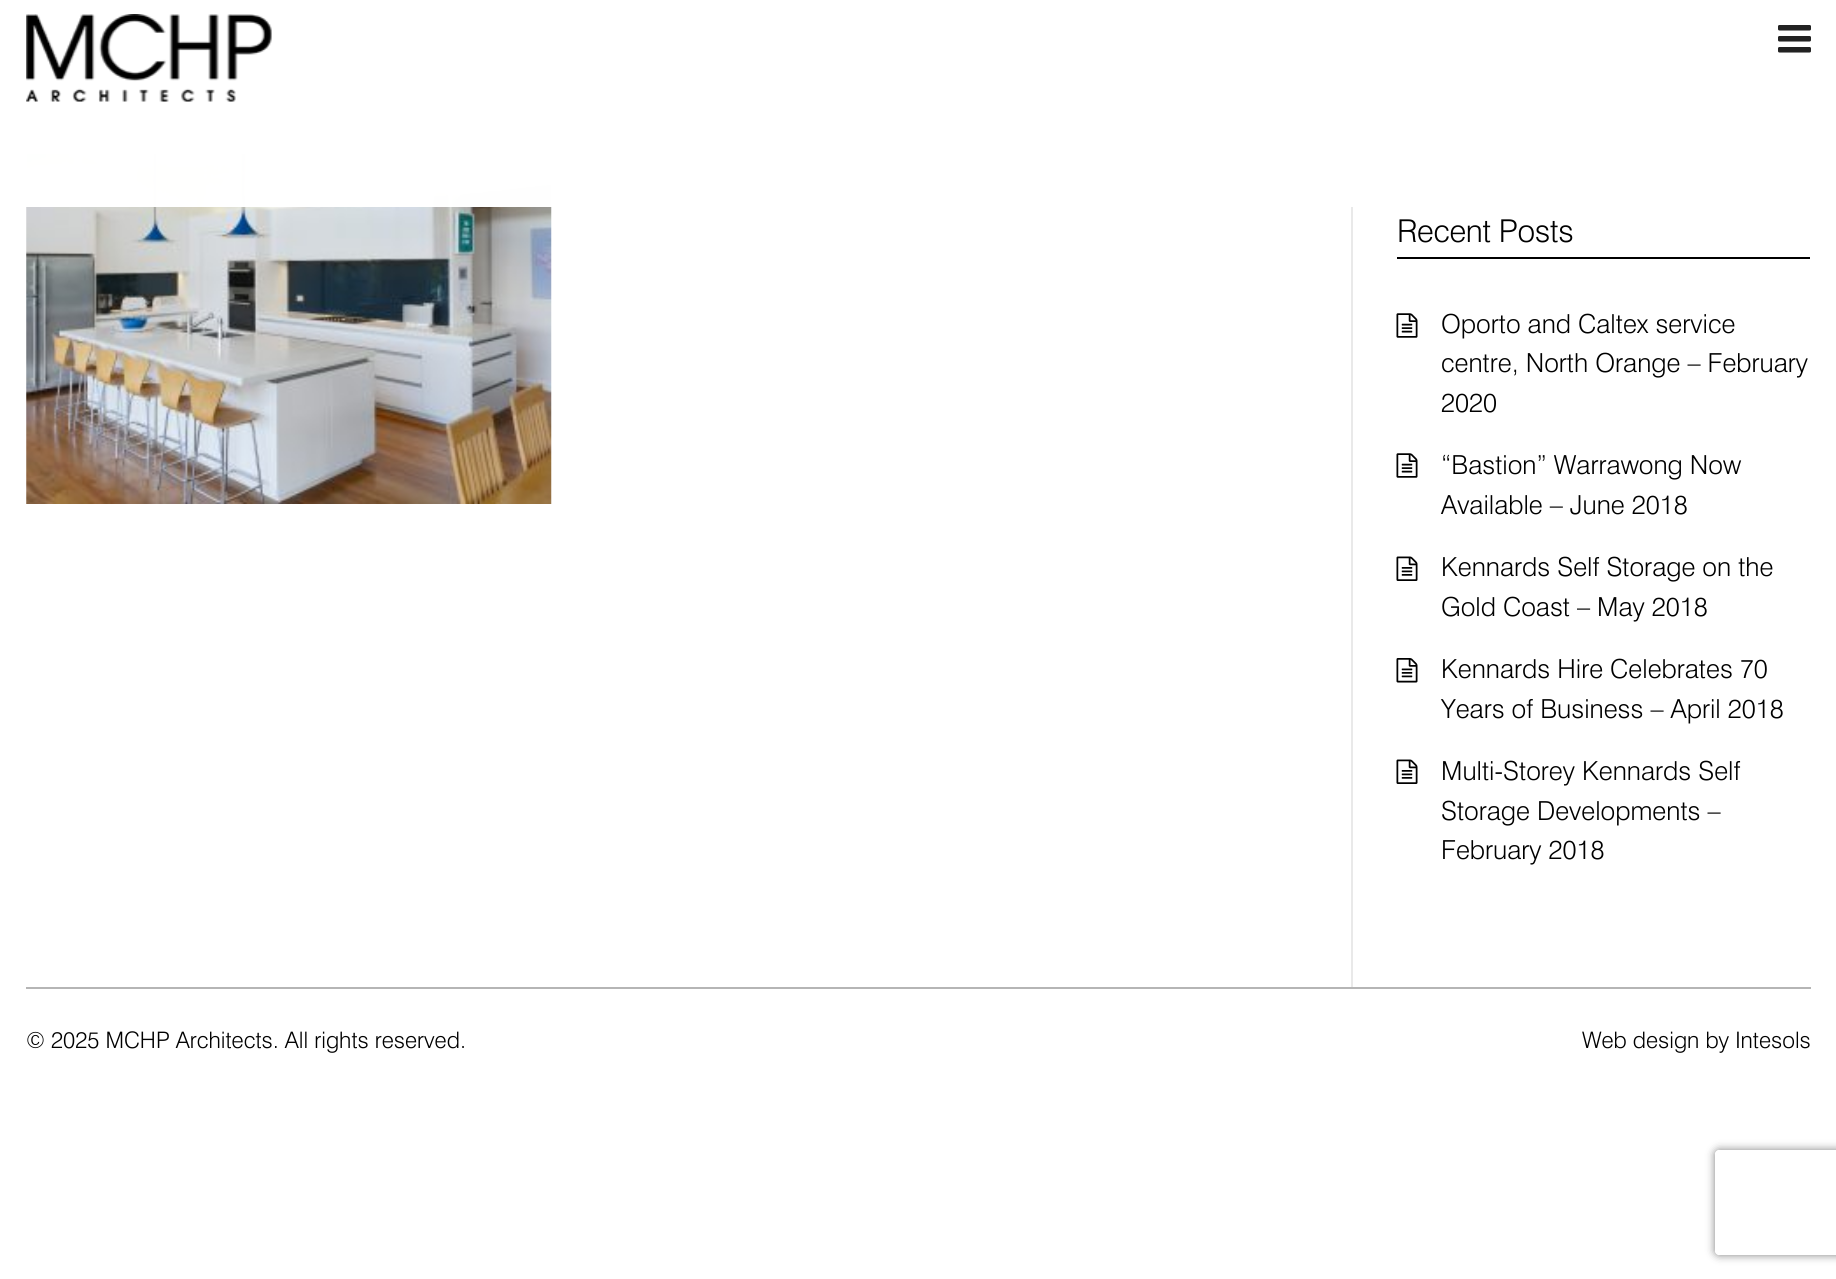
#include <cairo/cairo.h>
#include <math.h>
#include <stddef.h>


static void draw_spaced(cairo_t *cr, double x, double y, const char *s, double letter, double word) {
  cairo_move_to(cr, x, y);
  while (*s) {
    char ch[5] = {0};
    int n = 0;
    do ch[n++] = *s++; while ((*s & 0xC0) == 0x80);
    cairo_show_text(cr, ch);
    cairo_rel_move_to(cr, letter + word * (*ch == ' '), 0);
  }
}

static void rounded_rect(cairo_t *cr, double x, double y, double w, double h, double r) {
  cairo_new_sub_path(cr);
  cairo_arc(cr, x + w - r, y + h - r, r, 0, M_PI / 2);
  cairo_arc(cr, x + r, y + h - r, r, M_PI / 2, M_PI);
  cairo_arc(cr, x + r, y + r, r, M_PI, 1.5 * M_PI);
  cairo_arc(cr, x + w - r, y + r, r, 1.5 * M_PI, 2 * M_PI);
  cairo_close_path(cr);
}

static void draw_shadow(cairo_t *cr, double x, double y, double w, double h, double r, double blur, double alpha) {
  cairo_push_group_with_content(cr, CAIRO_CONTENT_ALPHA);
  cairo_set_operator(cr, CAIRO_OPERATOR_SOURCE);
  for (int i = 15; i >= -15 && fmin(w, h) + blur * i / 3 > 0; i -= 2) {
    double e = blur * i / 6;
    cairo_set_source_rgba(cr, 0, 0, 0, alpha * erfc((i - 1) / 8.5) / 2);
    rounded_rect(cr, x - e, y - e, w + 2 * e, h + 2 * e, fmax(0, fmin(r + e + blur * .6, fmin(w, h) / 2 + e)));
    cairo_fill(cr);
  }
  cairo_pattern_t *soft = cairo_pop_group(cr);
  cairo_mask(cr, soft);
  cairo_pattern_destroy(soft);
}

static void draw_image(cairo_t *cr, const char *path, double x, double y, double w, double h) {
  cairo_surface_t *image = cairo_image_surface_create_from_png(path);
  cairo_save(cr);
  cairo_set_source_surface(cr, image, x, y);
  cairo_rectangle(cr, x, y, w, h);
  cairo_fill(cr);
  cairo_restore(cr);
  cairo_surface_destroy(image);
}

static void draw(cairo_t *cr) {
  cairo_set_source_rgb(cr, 1, 1, 1);
  cairo_paint(cr);
  draw_image(cr, "images/3.png", 26, 154, 526, 350);
  cairo_set_source_rgb(cr, 233 / 255.0, 233 / 255.0, 233 / 255.0);
  cairo_rectangle(cr, 1351, 0, 2, 987);
  cairo_fill(cr);
  cairo_rectangle(cr, 1398, 89, 405, 76);
  cairo_stroke(cr);
  cairo_set_source_rgba(cr, 1, 1, 1, 0.99);
  cairo_rectangle(cr, 26, 0, 1778, 207);
  cairo_fill(cr);
  draw_image(cr, "images/1.png", 26, 14, 246, 88);
  draw_image(cr, "images/2.png", 1778, 25, 33, 28);
  cairo_set_source_rgb(cr, 0, 0, 0);
  cairo_rectangle(cr, 1397, 257, 413, 2);
  cairo_fill(cr);
  draw_image(cr, "images/4.png", 1396, 313, 22, 25);
  draw_image(cr, "images/4.png", 1396, 453, 22, 25);
  draw_image(cr, "images/5.png", 1396, 556, 22, 25);
  draw_image(cr, "images/6.png", 1396, 658, 22, 25);
  draw_image(cr, "images/5.png", 1396, 759, 22, 25);
  cairo_set_source_rgb(cr, 181 / 255.0, 181 / 255.0, 181 / 255.0);
  cairo_rectangle(cr, 26, 987, 1785, 2);
  cairo_fill(cr);
  cairo_save(cr);
  cairo_set_fill_rule(cr, CAIRO_FILL_RULE_EVEN_ODD);
  cairo_new_path(cr);
  cairo_move_to(cr, 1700, 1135);
  cairo_line_to(cr, 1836, 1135);
  cairo_line_to(cr, 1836, 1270);
  cairo_line_to(cr, 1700, 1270);
  cairo_close_path(cr);
  cairo_move_to(cr, 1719, 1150);
  cairo_line_to(cr, 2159, 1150);
  cairo_curve_to(cr, 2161, 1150, 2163, 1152, 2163, 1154);
  cairo_line_to(cr, 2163, 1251);
  cairo_curve_to(cr, 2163, 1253, 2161, 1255, 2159, 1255);
  cairo_line_to(cr, 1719, 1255);
  cairo_curve_to(cr, 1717, 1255, 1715, 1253, 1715, 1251);
  cairo_line_to(cr, 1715, 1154);
  cairo_curve_to(cr, 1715, 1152, 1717, 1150, 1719, 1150);
  cairo_close_path(cr);
  cairo_clip(cr);
  cairo_set_source_rgb(cr, 128 / 255.0, 128 / 255.0, 128 / 255.0);
  draw_shadow(cr, 1715, 1150, 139, 105, 4, 4.5, 1);
  cairo_restore(cr);
  cairo_select_font_face(cr, "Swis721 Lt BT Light", CAIRO_FONT_SLANT_NORMAL, CAIRO_FONT_WEIGHT_NORMAL);
  cairo_set_font_size(cr, 31.5);
  cairo_set_source_rgb(cr, 0, 0, 0);
  draw_spaced(cr, 1397, 242, "Recent Posts", -0.3, 0);
  cairo_set_font_size(cr, 26.25);
  cairo_move_to(cr, 1441, 333);
  cairo_show_text(cr, "Oporto and Caltex service");
  cairo_move_to(cr, 1441, 372);
  cairo_show_text(cr, "centre, North Orange – February");
  cairo_move_to(cr, 1441, 412);
  cairo_show_text(cr, "2020");
  cairo_move_to(cr, 1441, 474);
  cairo_show_text(cr, "“Bastion” Warrawong Now");
  cairo_move_to(cr, 1441, 514);
  cairo_show_text(cr, "Available – June 2018");
  cairo_move_to(cr, 1441, 576);
  cairo_show_text(cr, "Kennards Self Storage on the");
  cairo_move_to(cr, 1441, 616);
  cairo_show_text(cr, "Gold Coast – May 2018");
  cairo_move_to(cr, 1441, 678);
  cairo_show_text(cr, "Kennards Hire Celebrates 70");
  cairo_move_to(cr, 1441, 718);
  cairo_show_text(cr, "Years of Business – April 2018");
  cairo_move_to(cr, 1441, 780);
  cairo_show_text(cr, "Multi-Storey Kennards Self");
  cairo_move_to(cr, 1441, 820);
  cairo_show_text(cr, "Storage Developments –");
  cairo_move_to(cr, 1441, 859);
  cairo_show_text(cr, "February 2018");
  cairo_set_font_size(cr, 22.75);
  cairo_move_to(cr, 26, 1048);
  cairo_show_text(cr, "© 2025 MCHP Architects. All rights reserved.");
  cairo_move_to(cr, 1582, 1048);
  cairo_show_text(cr, "Web design by Intesols");
}

int main(void) {
  cairo_surface_t *surface = cairo_image_surface_create(CAIRO_FORMAT_RGB24, 1836, 1279);
  cairo_t *cr = cairo_create(surface);
  cairo_font_options_t *options = cairo_font_options_create();
  cairo_font_options_set_hint_metrics(options, CAIRO_HINT_METRICS_OFF);
  cairo_font_options_set_hint_style(options, CAIRO_HINT_STYLE_NONE);
  cairo_set_font_options(cr, options);
  cairo_set_miter_limit(cr, 4);
  draw(cr);
  cairo_surface_write_to_png(surface, "out.png");
  cairo_font_options_destroy(options);
  cairo_destroy(cr);
  cairo_surface_destroy(surface);
  return 0;
}
